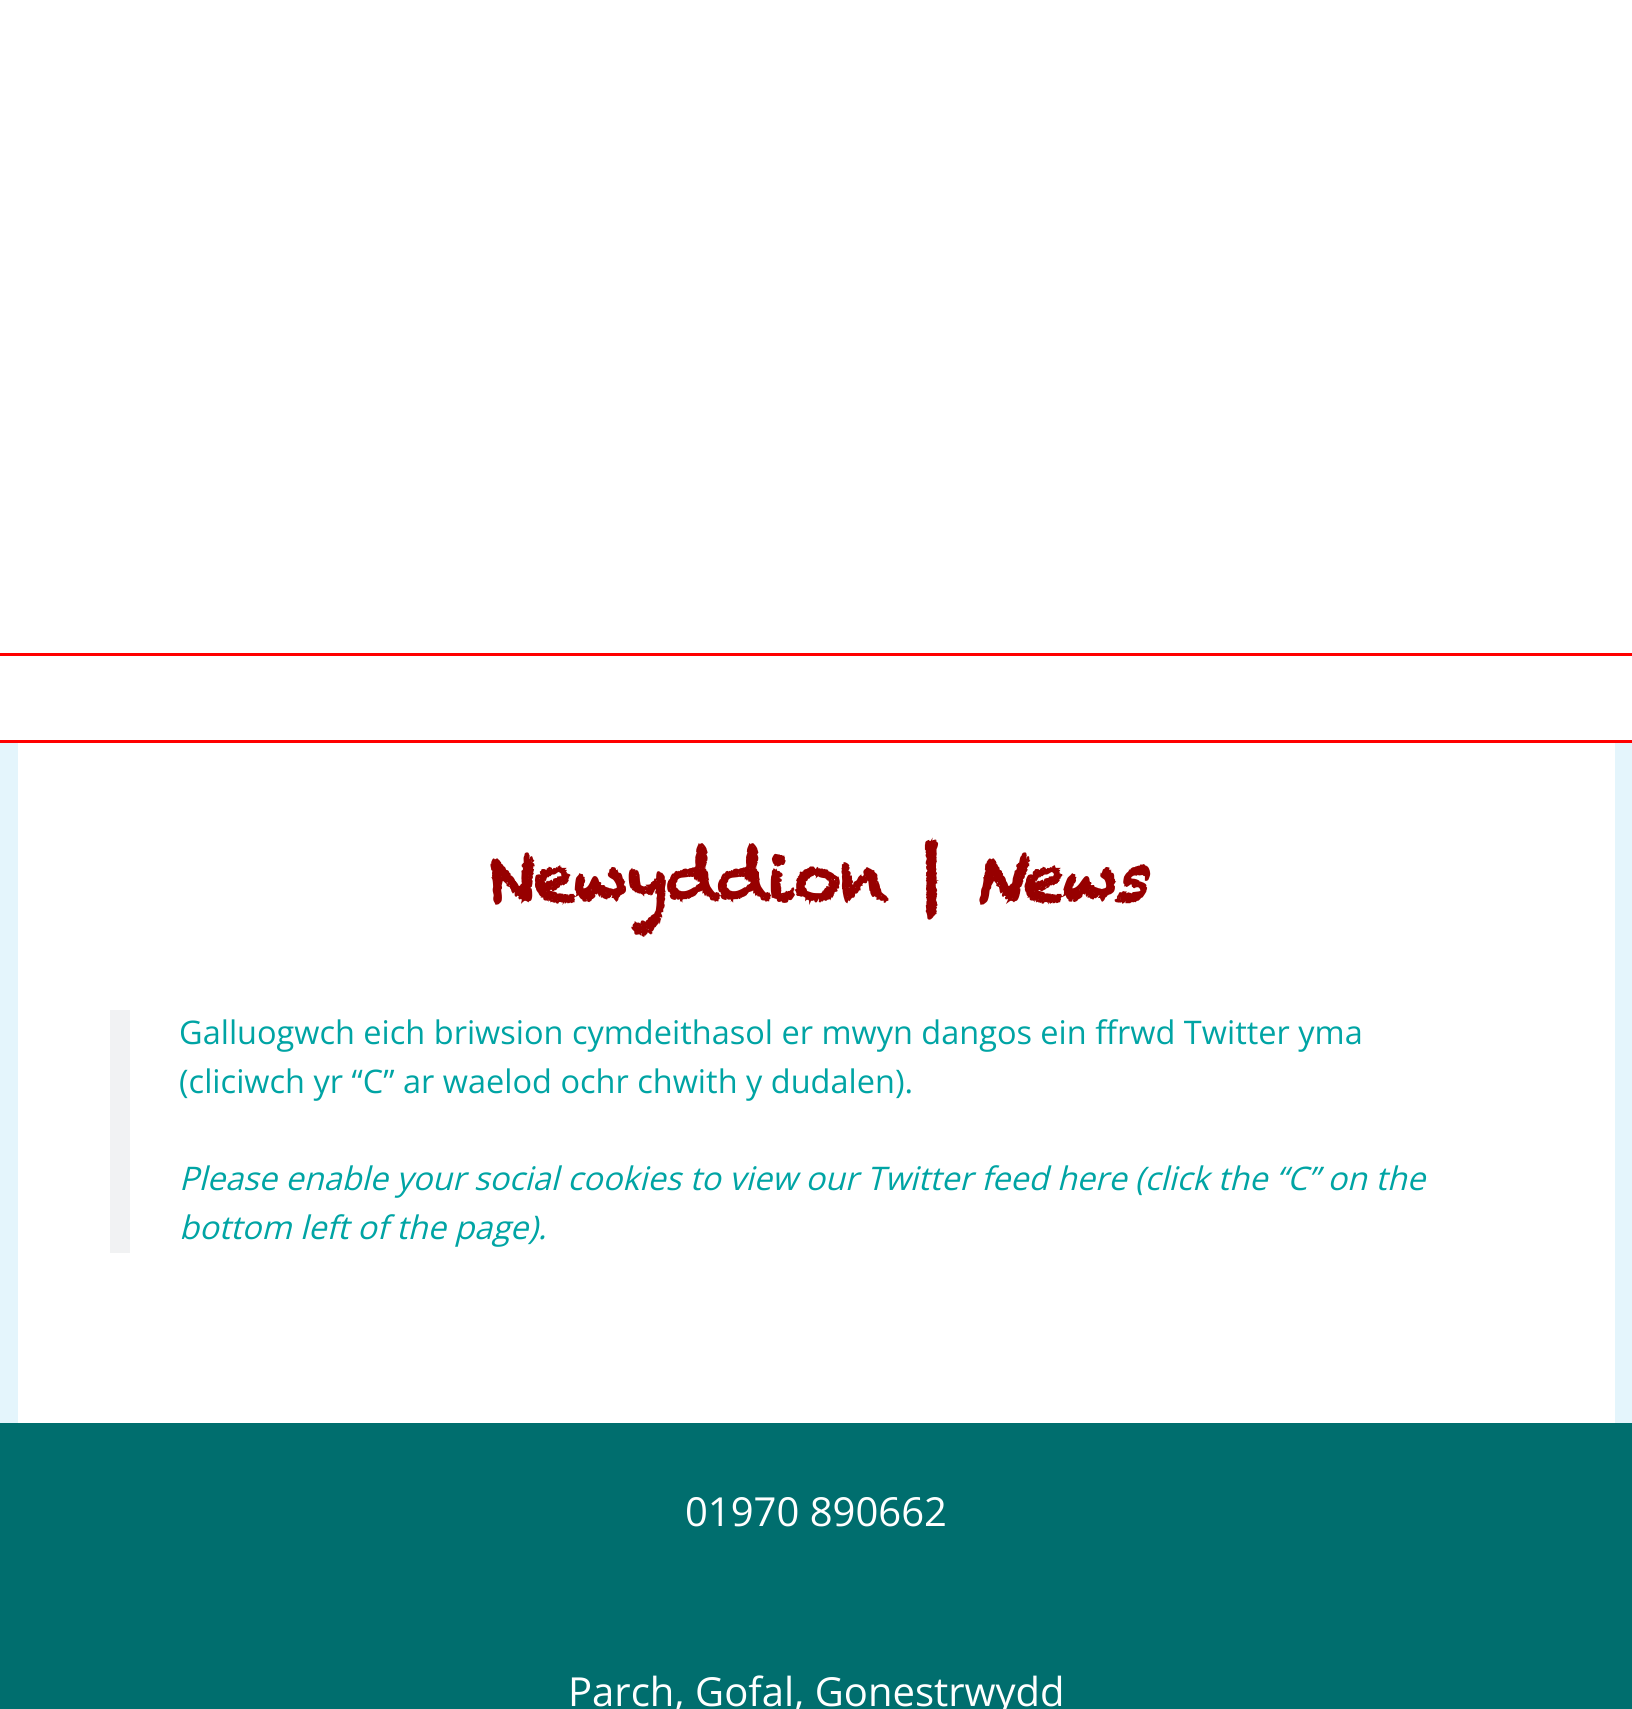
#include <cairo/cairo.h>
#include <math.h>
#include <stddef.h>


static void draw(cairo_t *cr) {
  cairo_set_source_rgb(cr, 1, 1, 1);
  cairo_paint(cr);
  cairo_set_source_rgb(cr, 1, 0, 0);
  cairo_rectangle(cr, 0, 653, 1632, 3);
  cairo_fill(cr);
  cairo_rectangle(cr, 0, 740, 1632, 3);
  cairo_fill(cr);
  cairo_set_source_rgb(cr, 228 / 255.0, 245 / 255.0, 252 / 255.0);
  cairo_rectangle(cr, 0, 743, 18, 680);
  cairo_fill(cr);
  cairo_rectangle(cr, 1615, 743, 17, 680);
  cairo_fill(cr);
  cairo_set_source_rgb(cr, 241 / 255.0, 242 / 255.0, 243 / 255.0);
  cairo_rectangle(cr, 110, 1010, 20, 243);
  cairo_fill(cr);
  cairo_set_source_rgb(cr, 0, 110 / 255.0, 110 / 255.0);
  cairo_rectangle(cr, 0, 1423, 1632, 286);
  cairo_fill(cr);
  cairo_select_font_face(cr, "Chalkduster", CAIRO_FONT_SLANT_NORMAL, CAIRO_FONT_WEIGHT_BOLD);
  cairo_set_font_size(cr, 65);
  cairo_set_source_rgb(cr, 151 / 255.0, 0, 0);
  cairo_move_to(cr, 487, 901);
  cairo_show_text(cr, "Newyddion |");
  cairo_select_font_face(cr, "Chalkduster", CAIRO_FONT_SLANT_ITALIC, CAIRO_FONT_WEIGHT_BOLD);
  cairo_move_to(cr, 973, 901);
  cairo_show_text(cr, "News");
  cairo_select_font_face(cr, "Open Sans", CAIRO_FONT_SLANT_NORMAL, CAIRO_FONT_WEIGHT_NORMAL);
  cairo_set_font_size(cr, 32.5);
  cairo_set_source_rgb(cr, 0, 164 / 255.0, 164 / 255.0);
  cairo_move_to(cr, 179, 1044);
  cairo_show_text(cr, "Galluogwch eich briwsion cymdeithasol er mwyn dangos ein ffrwd Twitter yma");
  cairo_move_to(cr, 179, 1093);
  cairo_show_text(cr, "(cliciwch yr “C” ar waelod ochr chwith y dudalen).");
  cairo_select_font_face(cr, "Open Sans", CAIRO_FONT_SLANT_ITALIC, CAIRO_FONT_WEIGHT_NORMAL);
  cairo_move_to(cr, 179, 1190);
  cairo_show_text(cr, "Please enable your social cookies to view our Twitter feed here (click the “C” on the");
  cairo_move_to(cr, 179, 1239);
  cairo_show_text(cr, "bottom left of the page).");
  cairo_select_font_face(cr, "Open Sans", CAIRO_FONT_SLANT_NORMAL, CAIRO_FONT_WEIGHT_NORMAL);
  cairo_set_font_size(cr, 40);
  cairo_set_source_rgb(cr, 1, 1, 1);
  cairo_move_to(cr, 685, 1526);
  cairo_show_text(cr, "01970 890662");
  cairo_move_to(cr, 568, 1706);
  cairo_show_text(cr, "Parch, Gofal, Gonestrwydd");
}

int main(void) {
  cairo_surface_t *surface = cairo_image_surface_create(CAIRO_FORMAT_RGB24, 1632, 1709);
  cairo_t *cr = cairo_create(surface);
  cairo_font_options_t *options = cairo_font_options_create();
  cairo_font_options_set_hint_metrics(options, CAIRO_HINT_METRICS_OFF);
  cairo_font_options_set_hint_style(options, CAIRO_HINT_STYLE_NONE);
  cairo_set_font_options(cr, options);
  cairo_set_miter_limit(cr, 4);
  draw(cr);
  cairo_surface_write_to_png(surface, "out.png");
  cairo_font_options_destroy(options);
  cairo_destroy(cr);
  cairo_surface_destroy(surface);
  return 0;
}
